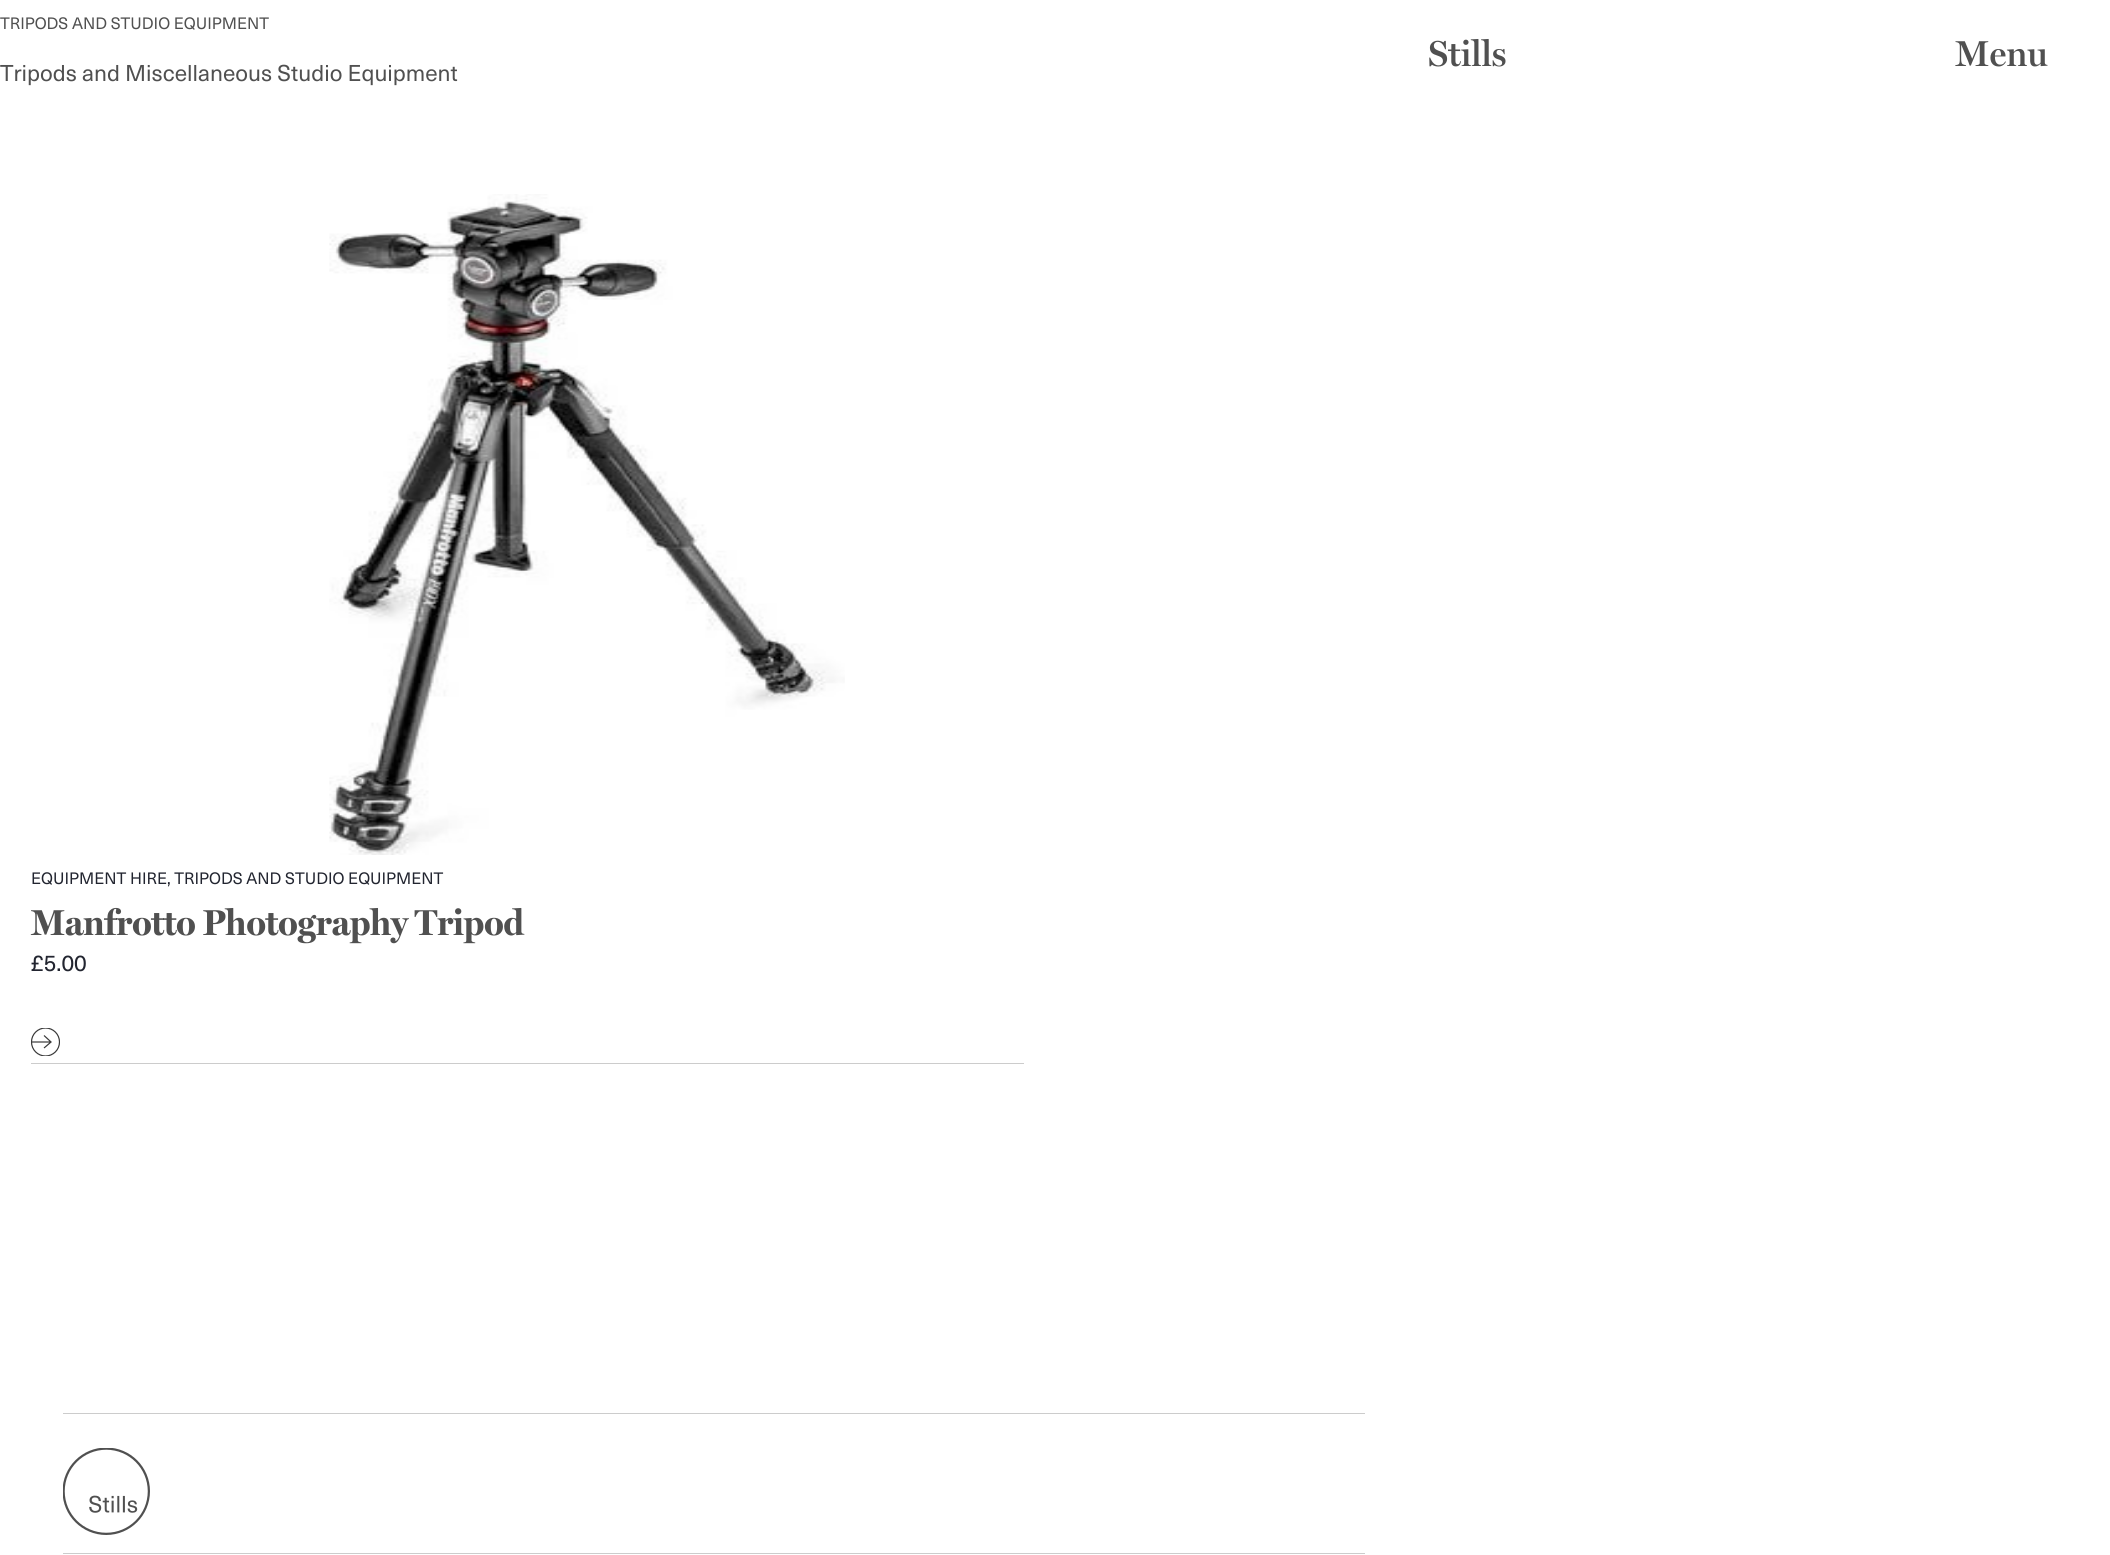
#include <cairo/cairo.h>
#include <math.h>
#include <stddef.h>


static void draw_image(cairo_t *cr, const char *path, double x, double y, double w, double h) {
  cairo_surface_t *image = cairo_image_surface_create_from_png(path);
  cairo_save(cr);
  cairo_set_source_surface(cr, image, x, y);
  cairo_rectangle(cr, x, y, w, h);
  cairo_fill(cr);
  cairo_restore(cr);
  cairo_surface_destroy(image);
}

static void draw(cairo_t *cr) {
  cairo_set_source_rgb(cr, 1, 1, 1);
  cairo_paint(cr);
  draw_image(cr, "images/1.png", 329, 194, 516, 661);
  cairo_set_source_rgb(cr, 204 / 255.0, 204 / 255.0, 204 / 255.0);
  cairo_rectangle(cr, 31, 1063, 993, 1);
  cairo_fill(cr);
  cairo_save(cr);
  cairo_rectangle(cr, 31, 1028, 29, 28);
  cairo_clip(cr);
  cairo_arc(cr, 45.5, 1042, 14, 0, 2 * M_PI);
  cairo_set_source_rgb(cr, 56 / 255.0, 56 / 255.0, 56 / 255.0);
  cairo_set_line_width(cr, 1.2);
  cairo_stroke(cr);
  cairo_restore(cr);
  cairo_new_path(cr);
  cairo_move_to(cr, 44, 1048);
  cairo_line_to(cr, 51, 1042);
  cairo_line_to(cr, 44, 1035.5);
  cairo_move_to(cr, 32, 1042);
  cairo_line_to(cr, 51.5, 1042);
  cairo_set_source_rgb(cr, 56 / 255.0, 56 / 255.0, 56 / 255.0);
  cairo_set_line_width(cr, 1.2);
  cairo_stroke(cr);
  cairo_set_source_rgb(cr, 204 / 255.0, 204 / 255.0, 204 / 255.0);
  cairo_rectangle(cr, 63, 1413, 1302, 1);
  cairo_fill(cr);
  draw_image(cr, "images/2.png", 63, 1448, 87, 87);
  cairo_rectangle(cr, 63, 1553, 1302, 1);
  cairo_fill(cr);
  cairo_select_font_face(cr, "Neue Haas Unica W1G", CAIRO_FONT_SLANT_NORMAL, CAIRO_FONT_WEIGHT_NORMAL);
  cairo_set_font_size(cr, 16.25);
  cairo_set_source_rgb(cr, 80 / 255.0, 80 / 255.0, 80 / 255.0);
  cairo_move_to(cr, 0, 29);
  cairo_show_text(cr, "TRIPODS AND STUDIO EQUIPMENT");
  cairo_set_font_size(cr, 22.5);
  cairo_move_to(cr, 0, 81);
  cairo_show_text(cr, "Tripods and Miscellaneous Studio Equipment");
  cairo_set_font_size(cr, 16.25);
  cairo_set_source_rgb(cr, 34 / 255.0, 37 / 255.0, 48 / 255.0);
  cairo_move_to(cr, 31, 884);
  cairo_show_text(cr, "EQUIPMENT HIRE, TRIPODS AND STUDIO EQUIPMENT");
  cairo_select_font_face(cr, "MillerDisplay", CAIRO_FONT_SLANT_NORMAL, CAIRO_FONT_WEIGHT_BOLD);
  cairo_set_font_size(cr, 36.25);
  cairo_set_source_rgb(cr, 80 / 255.0, 80 / 255.0, 80 / 255.0);
  cairo_move_to(cr, 31, 935);
  cairo_show_text(cr, "Manfrotto Photography Tripod");
  cairo_select_font_face(cr, "Neue Haas Unica W1G", CAIRO_FONT_SLANT_NORMAL, CAIRO_FONT_WEIGHT_NORMAL);
  cairo_set_font_size(cr, 22.5);
  cairo_set_source_rgb(cr, 34 / 255.0, 37 / 255.0, 48 / 255.0);
  cairo_move_to(cr, 31, 971);
  cairo_show_text(cr, "£5.00");
  cairo_select_font_face(cr, "MillerDisplay SemiBold", CAIRO_FONT_SLANT_NORMAL, CAIRO_FONT_WEIGHT_NORMAL);
  cairo_set_font_size(cr, 36.25);
  cairo_set_source_rgb(cr, 80 / 255.0, 80 / 255.0, 80 / 255.0);
  cairo_move_to(cr, 1428, 66);
  cairo_show_text(cr, "Stills");
  cairo_move_to(cr, 1955, 66);
  cairo_show_text(cr, "Menu");
}

int main(void) {
  cairo_surface_t *surface = cairo_image_surface_create(CAIRO_FORMAT_RGB24, 2110, 1555);
  cairo_t *cr = cairo_create(surface);
  cairo_font_options_t *options = cairo_font_options_create();
  cairo_font_options_set_hint_metrics(options, CAIRO_HINT_METRICS_OFF);
  cairo_font_options_set_hint_style(options, CAIRO_HINT_STYLE_NONE);
  cairo_set_font_options(cr, options);
  cairo_set_miter_limit(cr, 4);
  draw(cr);
  cairo_surface_write_to_png(surface, "out.png");
  cairo_font_options_destroy(options);
  cairo_destroy(cr);
  cairo_surface_destroy(surface);
  return 0;
}
